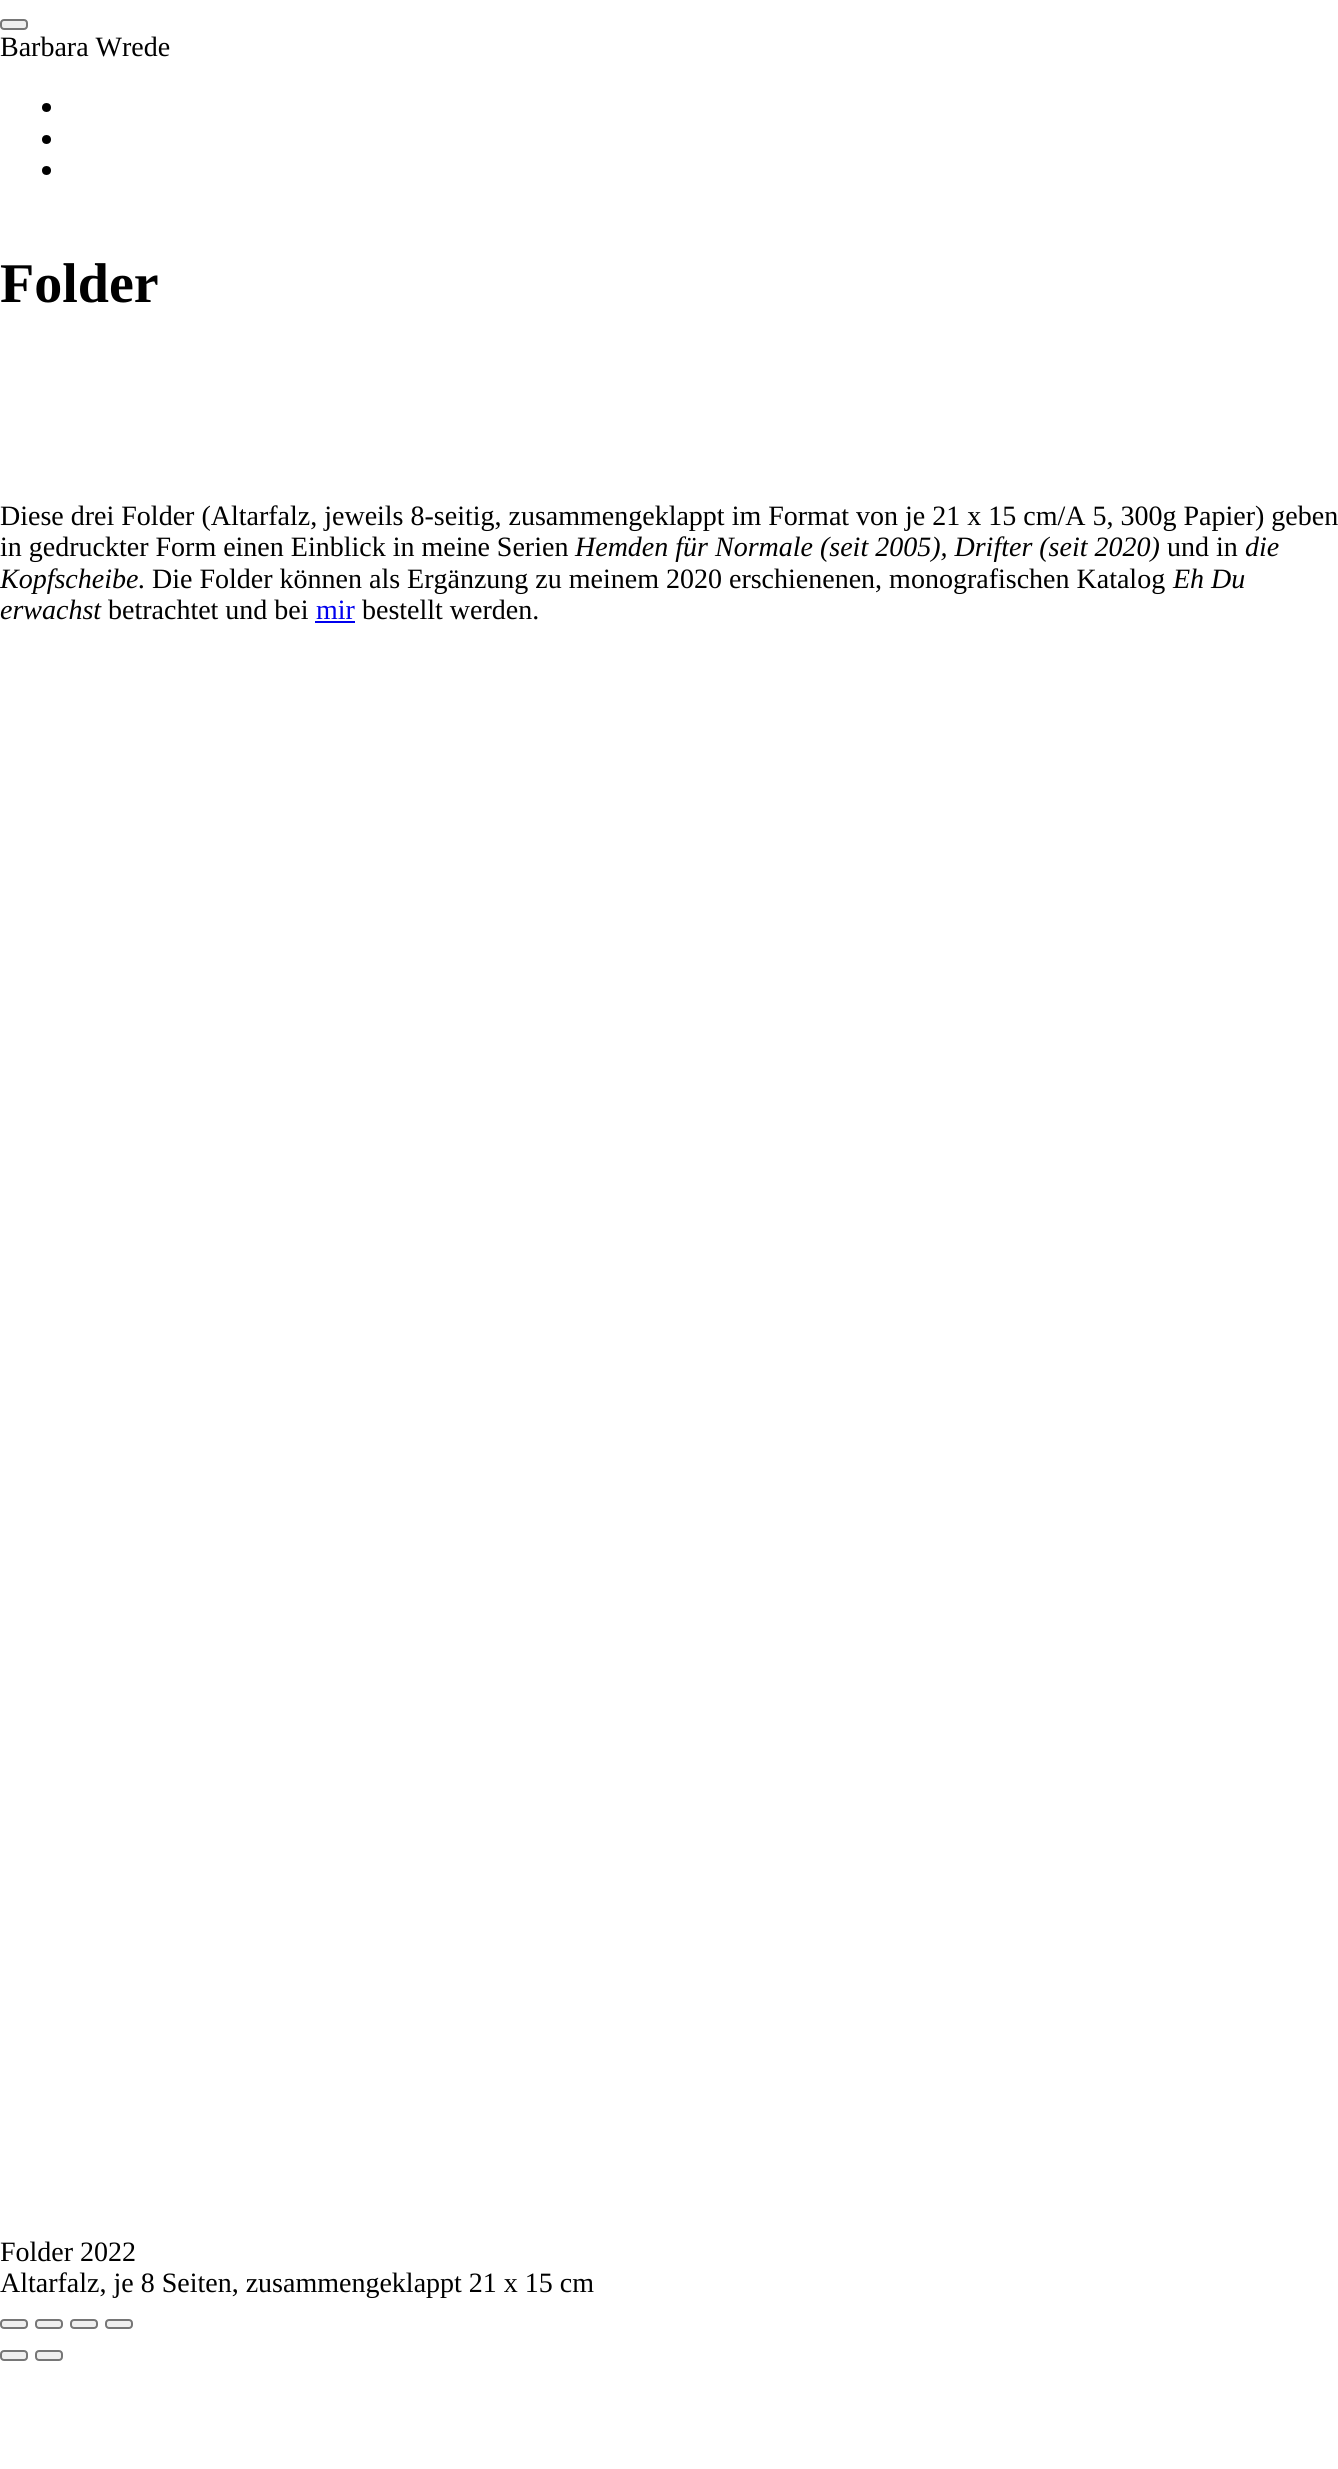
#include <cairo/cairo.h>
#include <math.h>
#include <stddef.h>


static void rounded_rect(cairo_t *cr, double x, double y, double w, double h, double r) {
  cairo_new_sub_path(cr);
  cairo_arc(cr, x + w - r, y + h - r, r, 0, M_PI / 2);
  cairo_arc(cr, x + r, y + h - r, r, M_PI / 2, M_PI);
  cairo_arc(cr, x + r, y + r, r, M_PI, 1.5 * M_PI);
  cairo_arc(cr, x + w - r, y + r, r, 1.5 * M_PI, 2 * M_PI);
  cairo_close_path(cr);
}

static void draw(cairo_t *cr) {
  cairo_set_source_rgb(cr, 1, 1, 1);
  cairo_paint(cr);
  cairo_set_source_rgb(cr, 239 / 255.0, 239 / 255.0, 239 / 255.0);
  rounded_rect(cr, 1, 20, 26, 9, 3);
  cairo_fill_preserve(cr);
  cairo_set_source_rgb(cr, 118 / 255.0, 118 / 255.0, 118 / 255.0);
  cairo_stroke(cr);
  cairo_set_source_rgb(cr, 0, 0, 0);
  cairo_arc(cr, 46.5, 107.5, 4.5, 0, 2 * M_PI);
  cairo_fill(cr);
  cairo_arc(cr, 46.5, 139.5, 4.5, 0, 2 * M_PI);
  cairo_fill(cr);
  cairo_arc(cr, 46.5, 170.5, 4.5, 0, 2 * M_PI);
  cairo_fill(cr);
  cairo_set_source_rgb(cr, 0, 0, 238 / 255.0);
  cairo_rectangle(cr, 315, 621, 40, 2);
  cairo_fill(cr);
  cairo_set_source_rgb(cr, 239 / 255.0, 239 / 255.0, 239 / 255.0);
  rounded_rect(cr, 1, 2320, 26, 8, 3);
  cairo_fill_preserve(cr);
  cairo_set_source_rgb(cr, 118 / 255.0, 118 / 255.0, 118 / 255.0);
  cairo_stroke(cr);
  cairo_set_source_rgb(cr, 239 / 255.0, 239 / 255.0, 239 / 255.0);
  rounded_rect(cr, 36, 2320, 26, 8, 3);
  cairo_fill_preserve(cr);
  cairo_set_source_rgb(cr, 118 / 255.0, 118 / 255.0, 118 / 255.0);
  cairo_stroke(cr);
  cairo_set_source_rgb(cr, 239 / 255.0, 239 / 255.0, 239 / 255.0);
  rounded_rect(cr, 71, 2320, 26, 8, 3);
  cairo_fill_preserve(cr);
  cairo_set_source_rgb(cr, 118 / 255.0, 118 / 255.0, 118 / 255.0);
  cairo_stroke(cr);
  cairo_set_source_rgb(cr, 239 / 255.0, 239 / 255.0, 239 / 255.0);
  rounded_rect(cr, 106, 2320, 26, 8, 3);
  cairo_fill_preserve(cr);
  cairo_set_source_rgb(cr, 118 / 255.0, 118 / 255.0, 118 / 255.0);
  cairo_stroke(cr);
  cairo_set_source_rgb(cr, 239 / 255.0, 239 / 255.0, 239 / 255.0);
  rounded_rect(cr, 1, 2351, 26, 9, 3);
  cairo_fill_preserve(cr);
  cairo_set_source_rgb(cr, 118 / 255.0, 118 / 255.0, 118 / 255.0);
  cairo_stroke(cr);
  cairo_set_source_rgb(cr, 239 / 255.0, 239 / 255.0, 239 / 255.0);
  rounded_rect(cr, 36, 2351, 26, 9, 3);
  cairo_fill_preserve(cr);
  cairo_set_source_rgb(cr, 118 / 255.0, 118 / 255.0, 118 / 255.0);
  cairo_stroke(cr);
  cairo_select_font_face(cr, "Liberation Serif", CAIRO_FONT_SLANT_NORMAL, CAIRO_FONT_WEIGHT_NORMAL);
  cairo_set_font_size(cr, 28);
  cairo_set_source_rgb(cr, 0, 0, 0);
  cairo_move_to(cr, 0, 56);
  cairo_show_text(cr, "Barbara Wrede");
  cairo_select_font_face(cr, "Liberation Serif", CAIRO_FONT_SLANT_NORMAL, CAIRO_FONT_WEIGHT_BOLD);
  cairo_set_font_size(cr, 56);
  cairo_move_to(cr, 0, 302);
  cairo_show_text(cr, "Folder");
  cairo_select_font_face(cr, "Liberation Serif", CAIRO_FONT_SLANT_NORMAL, CAIRO_FONT_WEIGHT_NORMAL);
  cairo_set_font_size(cr, 28);
  cairo_move_to(cr, 0, 525);
  cairo_show_text(cr, "Diese drei Folder (Altarfalz, jeweils 8-seitig, zusammengeklappt im Format von je 21 x 15 cm/A 5, 300g Papier) geben");
  cairo_move_to(cr, 0, 556);
  cairo_show_text(cr, "in gedruckter Form einen Einblick in meine Serien");
  cairo_select_font_face(cr, "Liberation Serif", CAIRO_FONT_SLANT_ITALIC, CAIRO_FONT_WEIGHT_NORMAL);
  cairo_move_to(cr, 575, 556);
  cairo_show_text(cr, "Hemden für Normale (seit 2005), Drifter (seit 2020)");
  cairo_select_font_face(cr, "Liberation Serif", CAIRO_FONT_SLANT_NORMAL, CAIRO_FONT_WEIGHT_NORMAL);
  cairo_move_to(cr, 1167, 556);
  cairo_show_text(cr, "und in");
  cairo_select_font_face(cr, "Liberation Serif", CAIRO_FONT_SLANT_ITALIC, CAIRO_FONT_WEIGHT_NORMAL);
  cairo_move_to(cr, 1245, 556);
  cairo_show_text(cr, "die");
  cairo_move_to(cr, 0, 588);
  cairo_show_text(cr, "Kopfscheibe.");
  cairo_select_font_face(cr, "Liberation Serif", CAIRO_FONT_SLANT_NORMAL, CAIRO_FONT_WEIGHT_NORMAL);
  cairo_move_to(cr, 152, 588);
  cairo_show_text(cr, "Die Folder können als Ergänzung zu meinem 2020 erschienenen, monografischen Katalog");
  cairo_select_font_face(cr, "Liberation Serif", CAIRO_FONT_SLANT_ITALIC, CAIRO_FONT_WEIGHT_NORMAL);
  cairo_move_to(cr, 1173, 588);
  cairo_show_text(cr, "Eh Du");
  cairo_move_to(cr, 0, 619);
  cairo_show_text(cr, "erwachst");
  cairo_select_font_face(cr, "Liberation Serif", CAIRO_FONT_SLANT_NORMAL, CAIRO_FONT_WEIGHT_NORMAL);
  cairo_move_to(cr, 108, 619);
  cairo_show_text(cr, "betrachtet und bei");
  cairo_set_source_rgb(cr, 0, 0, 238 / 255.0);
  cairo_move_to(cr, 316, 619);
  cairo_show_text(cr, "mir");
  cairo_set_source_rgb(cr, 0, 0, 0);
  cairo_move_to(cr, 362, 619);
  cairo_show_text(cr, "bestellt werden.");
  cairo_move_to(cr, 0, 2261);
  cairo_show_text(cr, "Folder 2022");
  cairo_move_to(cr, 0, 2292);
  cairo_show_text(cr, "Altarfalz, je 8 Seiten, zusammengeklappt 21 x 15 cm");
}

int main(void) {
  cairo_surface_t *surface = cairo_image_surface_create(CAIRO_FORMAT_RGB24, 1338, 2469);
  cairo_t *cr = cairo_create(surface);
  cairo_font_options_t *options = cairo_font_options_create();
  cairo_font_options_set_hint_metrics(options, CAIRO_HINT_METRICS_OFF);
  cairo_font_options_set_hint_style(options, CAIRO_HINT_STYLE_NONE);
  cairo_set_font_options(cr, options);
  cairo_set_miter_limit(cr, 4);
  draw(cr);
  cairo_surface_write_to_png(surface, "out.png");
  cairo_font_options_destroy(options);
  cairo_destroy(cr);
  cairo_surface_destroy(surface);
  return 0;
}
